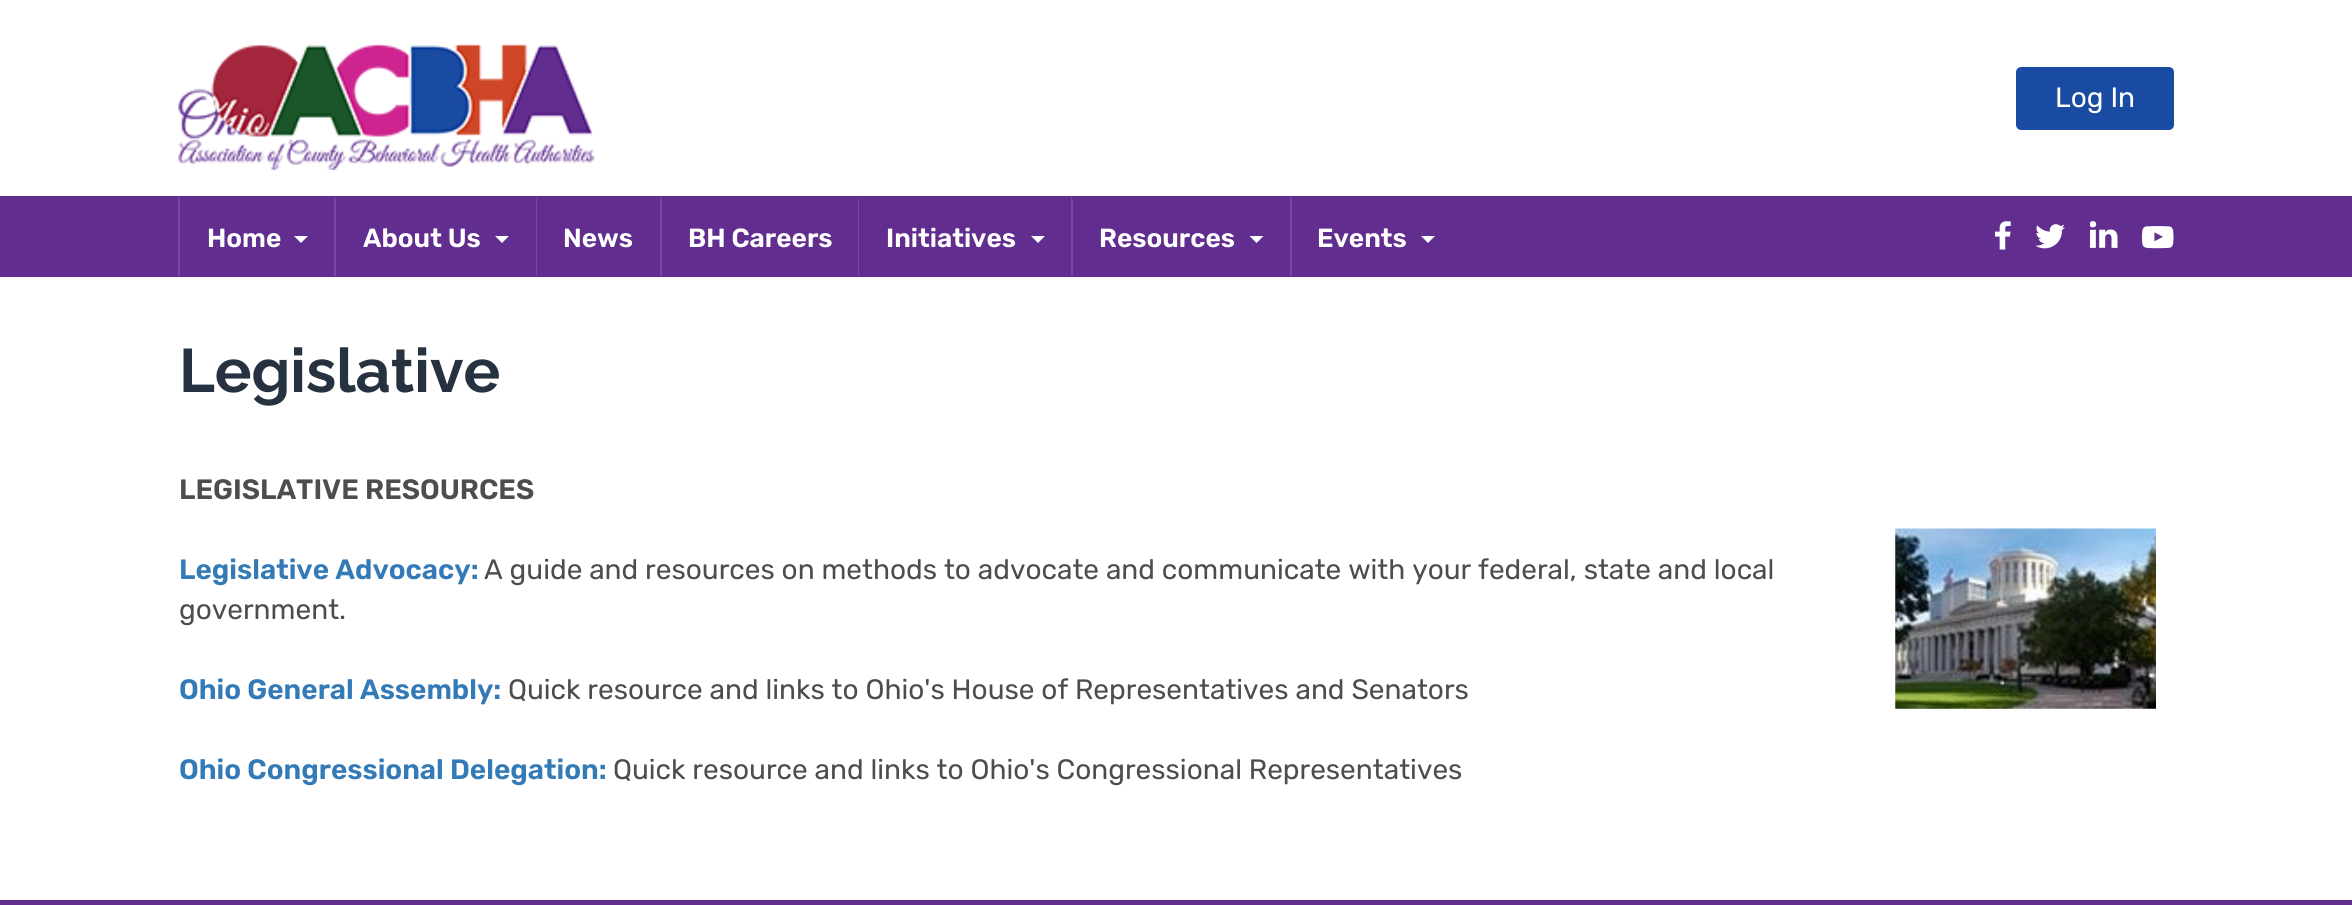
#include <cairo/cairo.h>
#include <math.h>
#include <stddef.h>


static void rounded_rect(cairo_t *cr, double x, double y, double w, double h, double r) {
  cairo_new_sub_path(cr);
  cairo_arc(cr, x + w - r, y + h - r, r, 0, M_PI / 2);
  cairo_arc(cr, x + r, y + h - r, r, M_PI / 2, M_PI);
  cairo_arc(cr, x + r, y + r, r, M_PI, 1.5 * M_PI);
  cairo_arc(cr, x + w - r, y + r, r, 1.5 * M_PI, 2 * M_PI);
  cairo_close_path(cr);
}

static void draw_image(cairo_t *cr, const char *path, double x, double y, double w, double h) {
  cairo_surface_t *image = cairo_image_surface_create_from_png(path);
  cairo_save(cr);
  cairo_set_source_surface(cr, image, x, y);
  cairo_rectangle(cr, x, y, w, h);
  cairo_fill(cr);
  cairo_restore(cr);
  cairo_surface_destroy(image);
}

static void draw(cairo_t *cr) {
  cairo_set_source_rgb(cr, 1, 1, 1);
  cairo_paint(cr);
  draw_image(cr, "images/1.png", 178, 43, 417, 127);
  cairo_set_source_rgb(cr, 24 / 255.0, 75 / 255.0, 161 / 255.0);
  rounded_rect(cr, 2018, 69, 154, 59, 3);
  cairo_fill_preserve(cr);
  cairo_set_line_width(cr, 4);
  cairo_stroke(cr);
  cairo_set_source_rgb(cr, 97 / 255.0, 46 / 255.0, 143 / 255.0);
  cairo_rectangle(cr, 0, 196, 2352, 81);
  cairo_fill(cr);
  cairo_set_source_rgb(cr, 121 / 255.0, 70 / 255.0, 175 / 255.0);
  cairo_new_path(cr);
  cairo_move_to(cr, 178, 276);
  cairo_line_to(cr, 178, 196);
  cairo_line_to(cr, 180, 200);
  cairo_line_to(cr, 180, 276);
  cairo_close_path(cr);
  cairo_fill(cr);
  cairo_set_source_rgb(cr, 1, 1, 1);
  cairo_new_path(cr);
  cairo_move_to(cr, 294, 236);
  cairo_line_to(cr, 308, 236);
  cairo_line_to(cr, 301, 243);
  cairo_close_path(cr);
  cairo_fill(cr);
  cairo_set_source_rgb(cr, 121 / 255.0, 70 / 255.0, 175 / 255.0);
  cairo_new_path(cr);
  cairo_move_to(cr, 334, 276);
  cairo_line_to(cr, 334, 196);
  cairo_line_to(cr, 336, 200);
  cairo_line_to(cr, 336, 276);
  cairo_close_path(cr);
  cairo_fill(cr);
  cairo_set_source_rgb(cr, 1, 1, 1);
  cairo_new_path(cr);
  cairo_move_to(cr, 495, 236);
  cairo_line_to(cr, 509, 236);
  cairo_line_to(cr, 502, 243);
  cairo_close_path(cr);
  cairo_fill(cr);
  cairo_set_source_rgb(cr, 121 / 255.0, 70 / 255.0, 175 / 255.0);
  cairo_new_path(cr);
  cairo_move_to(cr, 536, 276);
  cairo_line_to(cr, 536, 196);
  cairo_line_to(cr, 537, 200);
  cairo_line_to(cr, 537, 276);
  cairo_close_path(cr);
  cairo_fill(cr);
  cairo_new_path(cr);
  cairo_move_to(cr, 660, 276);
  cairo_line_to(cr, 660, 196);
  cairo_line_to(cr, 662, 200);
  cairo_line_to(cr, 662, 276);
  cairo_close_path(cr);
  cairo_fill(cr);
  cairo_new_path(cr);
  cairo_move_to(cr, 858, 276);
  cairo_line_to(cr, 858, 196);
  cairo_line_to(cr, 859, 200);
  cairo_line_to(cr, 859, 276);
  cairo_close_path(cr);
  cairo_fill(cr);
  cairo_set_source_rgb(cr, 1, 1, 1);
  cairo_new_path(cr);
  cairo_move_to(cr, 1031, 236);
  cairo_line_to(cr, 1045, 236);
  cairo_line_to(cr, 1038, 243);
  cairo_close_path(cr);
  cairo_fill(cr);
  cairo_set_source_rgb(cr, 121 / 255.0, 70 / 255.0, 175 / 255.0);
  cairo_new_path(cr);
  cairo_move_to(cr, 1071, 276);
  cairo_line_to(cr, 1071, 196);
  cairo_line_to(cr, 1073, 200);
  cairo_line_to(cr, 1073, 276);
  cairo_close_path(cr);
  cairo_fill(cr);
  cairo_set_source_rgb(cr, 1, 1, 1);
  cairo_new_path(cr);
  cairo_move_to(cr, 1249.5, 236);
  cairo_line_to(cr, 1263.5, 236);
  cairo_line_to(cr, 1256.5, 243);
  cairo_close_path(cr);
  cairo_fill(cr);
  cairo_set_source_rgb(cr, 121 / 255.0, 70 / 255.0, 175 / 255.0);
  cairo_new_path(cr);
  cairo_move_to(cr, 1290, 276);
  cairo_line_to(cr, 1290, 196);
  cairo_line_to(cr, 1292, 200);
  cairo_line_to(cr, 1292, 276);
  cairo_close_path(cr);
  cairo_fill(cr);
  cairo_set_source_rgb(cr, 1, 1, 1);
  cairo_new_path(cr);
  cairo_move_to(cr, 1421, 236);
  cairo_line_to(cr, 1435, 236);
  cairo_line_to(cr, 1428, 243);
  cairo_close_path(cr);
  cairo_fill(cr);
  draw_image(cr, "images/2.png", 1995, 221, 16, 29);
  draw_image(cr, "images/3.png", 2035, 224, 30, 25);
  draw_image(cr, "images/4.png", 2090, 221, 28, 27);
  draw_image(cr, "images/5.png", 2142, 226, 32, 23);
  draw_image(cr, "images/6.png", 1895, 528, 261, 181);
  cairo_set_source_rgb(cr, 97 / 255.0, 46 / 255.0, 143 / 255.0);
  cairo_rectangle(cr, 0, 900, 2352, 5);
  cairo_fill(cr);
  cairo_select_font_face(cr, "Rubik", CAIRO_FONT_SLANT_NORMAL, CAIRO_FONT_WEIGHT_NORMAL);
  cairo_set_font_size(cr, 28);
  cairo_set_source_rgb(cr, 1, 1, 1);
  cairo_move_to(cr, 2055, 107);
  cairo_show_text(cr, "Log In");
  cairo_select_font_face(cr, "Rubik SemiBold", CAIRO_FONT_SLANT_NORMAL, CAIRO_FONT_WEIGHT_NORMAL);
  cairo_set_font_size(cr, 26.25);
  cairo_move_to(cr, 207, 247);
  cairo_show_text(cr, "Home");
  cairo_move_to(cr, 363, 247);
  cairo_show_text(cr, "About Us");
  cairo_move_to(cr, 563, 247);
  cairo_show_text(cr, "News");
  cairo_move_to(cr, 688, 247);
  cairo_show_text(cr, "BH Careers");
  cairo_move_to(cr, 886, 247);
  cairo_show_text(cr, "Initiatives");
  cairo_move_to(cr, 1099, 247);
  cairo_show_text(cr, "Resources");
  cairo_move_to(cr, 1317, 247);
  cairo_show_text(cr, "Events");
  cairo_select_font_face(cr, "Raleway Thin", CAIRO_FONT_SLANT_NORMAL, CAIRO_FONT_WEIGHT_NORMAL);
  cairo_set_font_size(cr, 61.25);
  cairo_set_source_rgb(cr, 38 / 255.0, 50 / 255.0, 63 / 255.0);
  cairo_move_to(cr, 179, 392);
  cairo_show_text(cr, "Legislative");
  cairo_select_font_face(cr, "Rubik SemiBold", CAIRO_FONT_SLANT_NORMAL, CAIRO_FONT_WEIGHT_NORMAL);
  cairo_set_font_size(cr, 28);
  cairo_set_source_rgb(cr, 77 / 255.0, 77 / 255.0, 77 / 255.0);
  cairo_move_to(cr, 179, 499);
  cairo_show_text(cr, "LEGISLATIVE RESOURCES");
  cairo_set_source_rgb(cr, 51 / 255.0, 122 / 255.0, 183 / 255.0);
  cairo_move_to(cr, 179, 579);
  cairo_show_text(cr, "Legislative Advocacy:");
  cairo_select_font_face(cr, "Rubik", CAIRO_FONT_SLANT_NORMAL, CAIRO_FONT_WEIGHT_NORMAL);
  cairo_set_source_rgb(cr, 77 / 255.0, 77 / 255.0, 77 / 255.0);
  cairo_move_to(cr, 484, 579);
  cairo_show_text(cr, "A guide and resources on methods to advocate and communicate with your federal, state and local");
  cairo_move_to(cr, 179, 619);
  cairo_show_text(cr, "government.");
  cairo_select_font_face(cr, "Rubik SemiBold", CAIRO_FONT_SLANT_NORMAL, CAIRO_FONT_WEIGHT_NORMAL);
  cairo_set_source_rgb(cr, 51 / 255.0, 122 / 255.0, 183 / 255.0);
  cairo_move_to(cr, 179, 699);
  cairo_show_text(cr, "Ohio General Assembly:");
  cairo_select_font_face(cr, "Rubik", CAIRO_FONT_SLANT_NORMAL, CAIRO_FONT_WEIGHT_NORMAL);
  cairo_set_source_rgb(cr, 77 / 255.0, 77 / 255.0, 77 / 255.0);
  cairo_move_to(cr, 508, 699);
  cairo_show_text(cr, "Quick resource and links to Ohio's House of Representatives and Senators");
  cairo_select_font_face(cr, "Rubik SemiBold", CAIRO_FONT_SLANT_NORMAL, CAIRO_FONT_WEIGHT_NORMAL);
  cairo_set_source_rgb(cr, 51 / 255.0, 122 / 255.0, 183 / 255.0);
  cairo_move_to(cr, 179, 779);
  cairo_show_text(cr, "Ohio Congressional Delegation:");
  cairo_select_font_face(cr, "Rubik", CAIRO_FONT_SLANT_NORMAL, CAIRO_FONT_WEIGHT_NORMAL);
  cairo_set_source_rgb(cr, 77 / 255.0, 77 / 255.0, 77 / 255.0);
  cairo_move_to(cr, 613, 779);
  cairo_show_text(cr, "Quick resource and links to Ohio's Congressional Representatives");
}

int main(void) {
  cairo_surface_t *surface = cairo_image_surface_create(CAIRO_FORMAT_RGB24, 2352, 905);
  cairo_t *cr = cairo_create(surface);
  cairo_font_options_t *options = cairo_font_options_create();
  cairo_font_options_set_hint_metrics(options, CAIRO_HINT_METRICS_OFF);
  cairo_font_options_set_hint_style(options, CAIRO_HINT_STYLE_NONE);
  cairo_set_font_options(cr, options);
  cairo_set_miter_limit(cr, 4);
  draw(cr);
  cairo_surface_write_to_png(surface, "out.png");
  cairo_font_options_destroy(options);
  cairo_destroy(cr);
  cairo_surface_destroy(surface);
  return 0;
}
